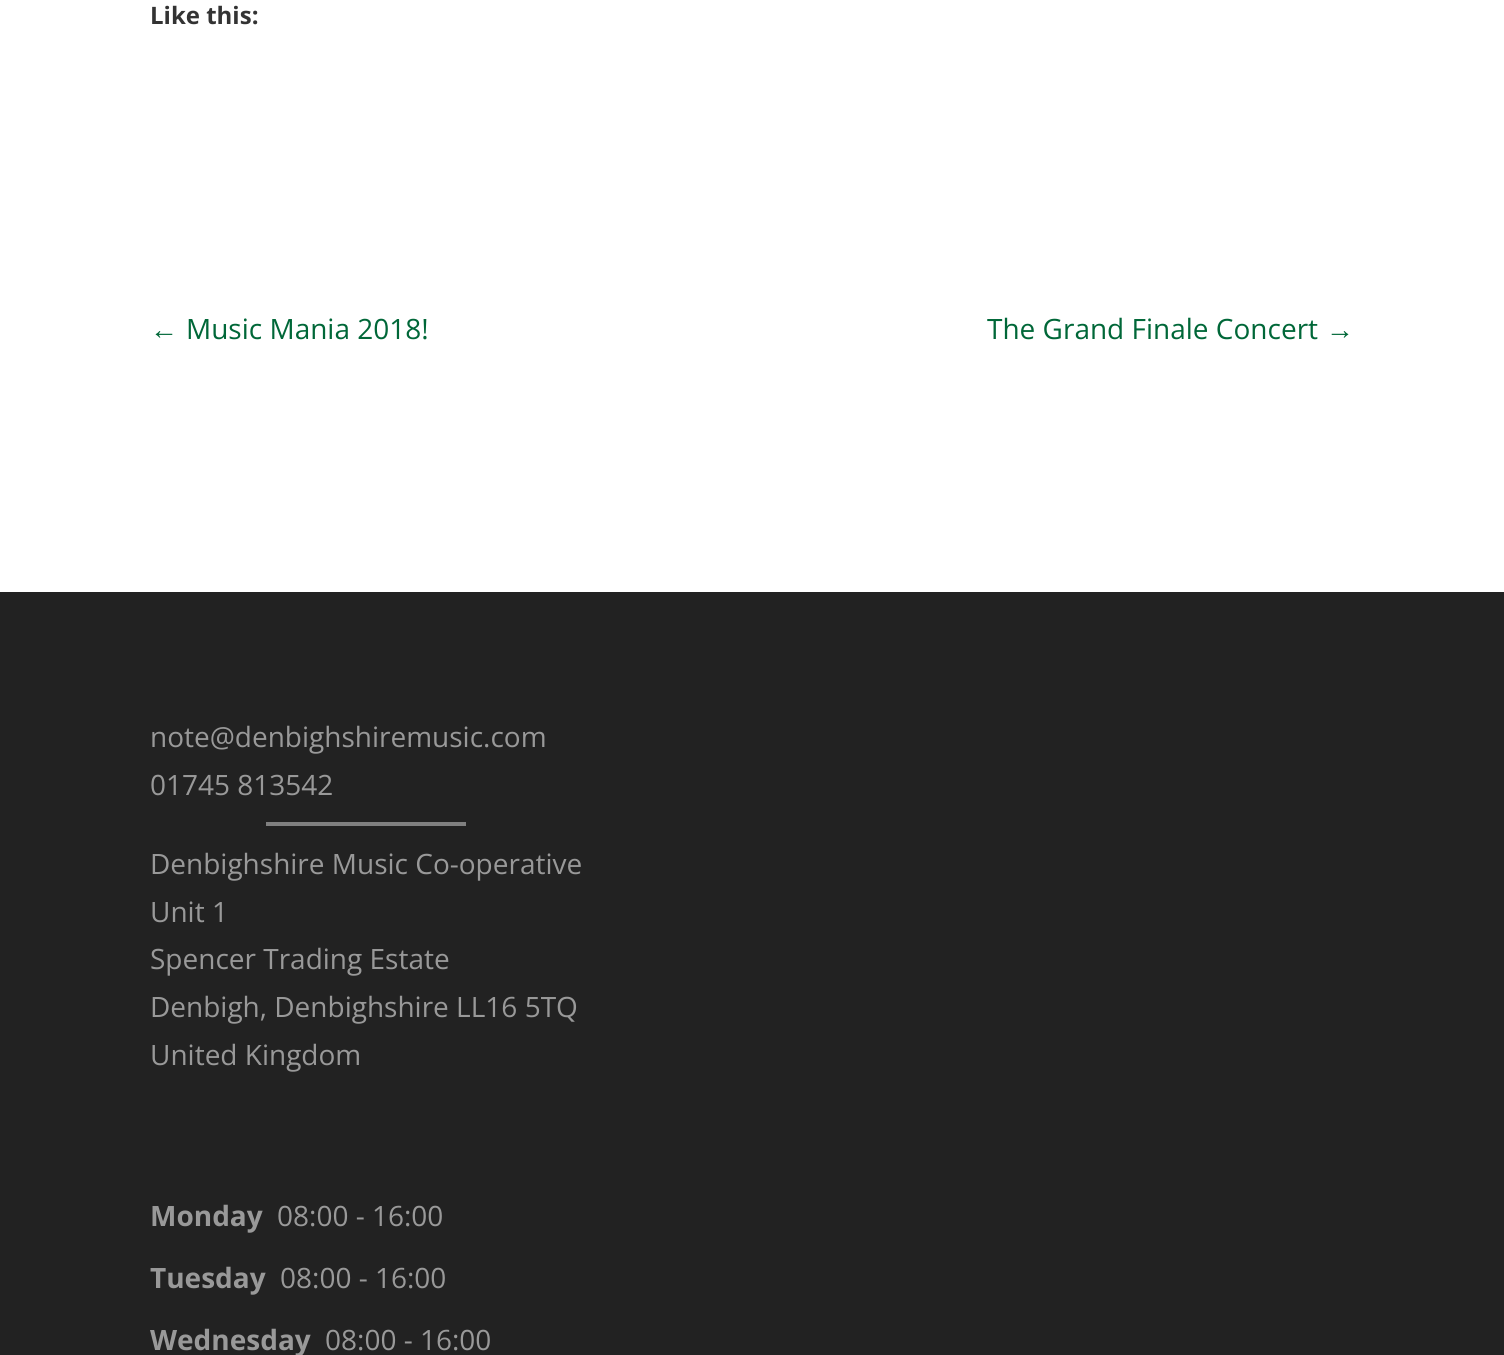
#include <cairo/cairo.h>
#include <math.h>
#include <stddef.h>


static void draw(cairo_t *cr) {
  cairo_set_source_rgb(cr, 1, 1, 1);
  cairo_paint(cr);
  cairo_set_source_rgb(cr, 34 / 255.0, 34 / 255.0, 34 / 255.0);
  cairo_rectangle(cr, 0, 592, 1504, 763);
  cairo_fill(cr);
  cairo_set_source_rgb(cr, 128 / 255.0, 128 / 255.0, 128 / 255.0);
  cairo_rectangle(cr, 266, 822, 200, 4);
  cairo_fill(cr);
  cairo_select_font_face(cr, "Open Sans", CAIRO_FONT_SLANT_NORMAL, CAIRO_FONT_WEIGHT_BOLD);
  cairo_set_font_size(cr, 24);
  cairo_set_source_rgb(cr, 51 / 255.0, 51 / 255.0, 51 / 255.0);
  cairo_move_to(cr, 150, 24);
  cairo_show_text(cr, "Like this:");
  cairo_select_font_face(cr, "Liberation Sans", CAIRO_FONT_SLANT_NORMAL, CAIRO_FONT_WEIGHT_NORMAL);
  cairo_set_font_size(cr, 28);
  cairo_set_source_rgb(cr, 0, 103 / 255.0, 56 / 255.0);
  cairo_move_to(cr, 150, 339);
  cairo_show_text(cr, "←");
  cairo_select_font_face(cr, "Open Sans", CAIRO_FONT_SLANT_NORMAL, CAIRO_FONT_WEIGHT_NORMAL);
  cairo_move_to(cr, 186, 339);
  cairo_show_text(cr, "Music Mania 2018!");
  cairo_move_to(cr, 987, 339);
  cairo_show_text(cr, "The Grand Finale Concert");
  cairo_select_font_face(cr, "Liberation Sans", CAIRO_FONT_SLANT_NORMAL, CAIRO_FONT_WEIGHT_NORMAL);
  cairo_move_to(cr, 1326, 339);
  cairo_show_text(cr, "→");
  cairo_select_font_face(cr, "Open Sans", CAIRO_FONT_SLANT_NORMAL, CAIRO_FONT_WEIGHT_NORMAL);
  cairo_set_source_rgb(cr, 153 / 255.0, 153 / 255.0, 153 / 255.0);
  cairo_move_to(cr, 150, 747);
  cairo_show_text(cr, "note@denbighshiremusic.com");
  cairo_move_to(cr, 150, 795);
  cairo_show_text(cr, "01745 813542");
  cairo_move_to(cr, 150, 874);
  cairo_show_text(cr, "Denbighshire Music Co-operative");
  cairo_move_to(cr, 150, 922);
  cairo_show_text(cr, "Unit 1");
  cairo_move_to(cr, 150, 969);
  cairo_show_text(cr, "Spencer Trading Estate");
  cairo_move_to(cr, 150, 1017);
  cairo_show_text(cr, "Denbigh, Denbighshire LL16 5TQ");
  cairo_move_to(cr, 150, 1065);
  cairo_show_text(cr, "United Kingdom");
  cairo_select_font_face(cr, "Open Sans", CAIRO_FONT_SLANT_NORMAL, CAIRO_FONT_WEIGHT_BOLD);
  cairo_move_to(cr, 150, 1226);
  cairo_show_text(cr, "Monday");
  cairo_select_font_face(cr, "Open Sans", CAIRO_FONT_SLANT_NORMAL, CAIRO_FONT_WEIGHT_NORMAL);
  cairo_move_to(cr, 277, 1226);
  cairo_show_text(cr, "08:00 - 16:00");
  cairo_select_font_face(cr, "Open Sans", CAIRO_FONT_SLANT_NORMAL, CAIRO_FONT_WEIGHT_BOLD);
  cairo_move_to(cr, 150, 1288);
  cairo_show_text(cr, "Tuesday");
  cairo_select_font_face(cr, "Open Sans", CAIRO_FONT_SLANT_NORMAL, CAIRO_FONT_WEIGHT_NORMAL);
  cairo_move_to(cr, 280, 1288);
  cairo_show_text(cr, "08:00 - 16:00");
  cairo_select_font_face(cr, "Open Sans", CAIRO_FONT_SLANT_NORMAL, CAIRO_FONT_WEIGHT_BOLD);
  cairo_move_to(cr, 150, 1350);
  cairo_show_text(cr, "Wednesday");
  cairo_select_font_face(cr, "Open Sans", CAIRO_FONT_SLANT_NORMAL, CAIRO_FONT_WEIGHT_NORMAL);
  cairo_move_to(cr, 325, 1350);
  cairo_show_text(cr, "08:00 - 16:00");
}

int main(void) {
  cairo_surface_t *surface = cairo_image_surface_create(CAIRO_FORMAT_RGB24, 1504, 1355);
  cairo_t *cr = cairo_create(surface);
  cairo_font_options_t *options = cairo_font_options_create();
  cairo_font_options_set_hint_metrics(options, CAIRO_HINT_METRICS_OFF);
  cairo_font_options_set_hint_style(options, CAIRO_HINT_STYLE_NONE);
  cairo_set_font_options(cr, options);
  cairo_set_miter_limit(cr, 4);
  draw(cr);
  cairo_surface_write_to_png(surface, "out.png");
  cairo_font_options_destroy(options);
  cairo_destroy(cr);
  cairo_surface_destroy(surface);
  return 0;
}
